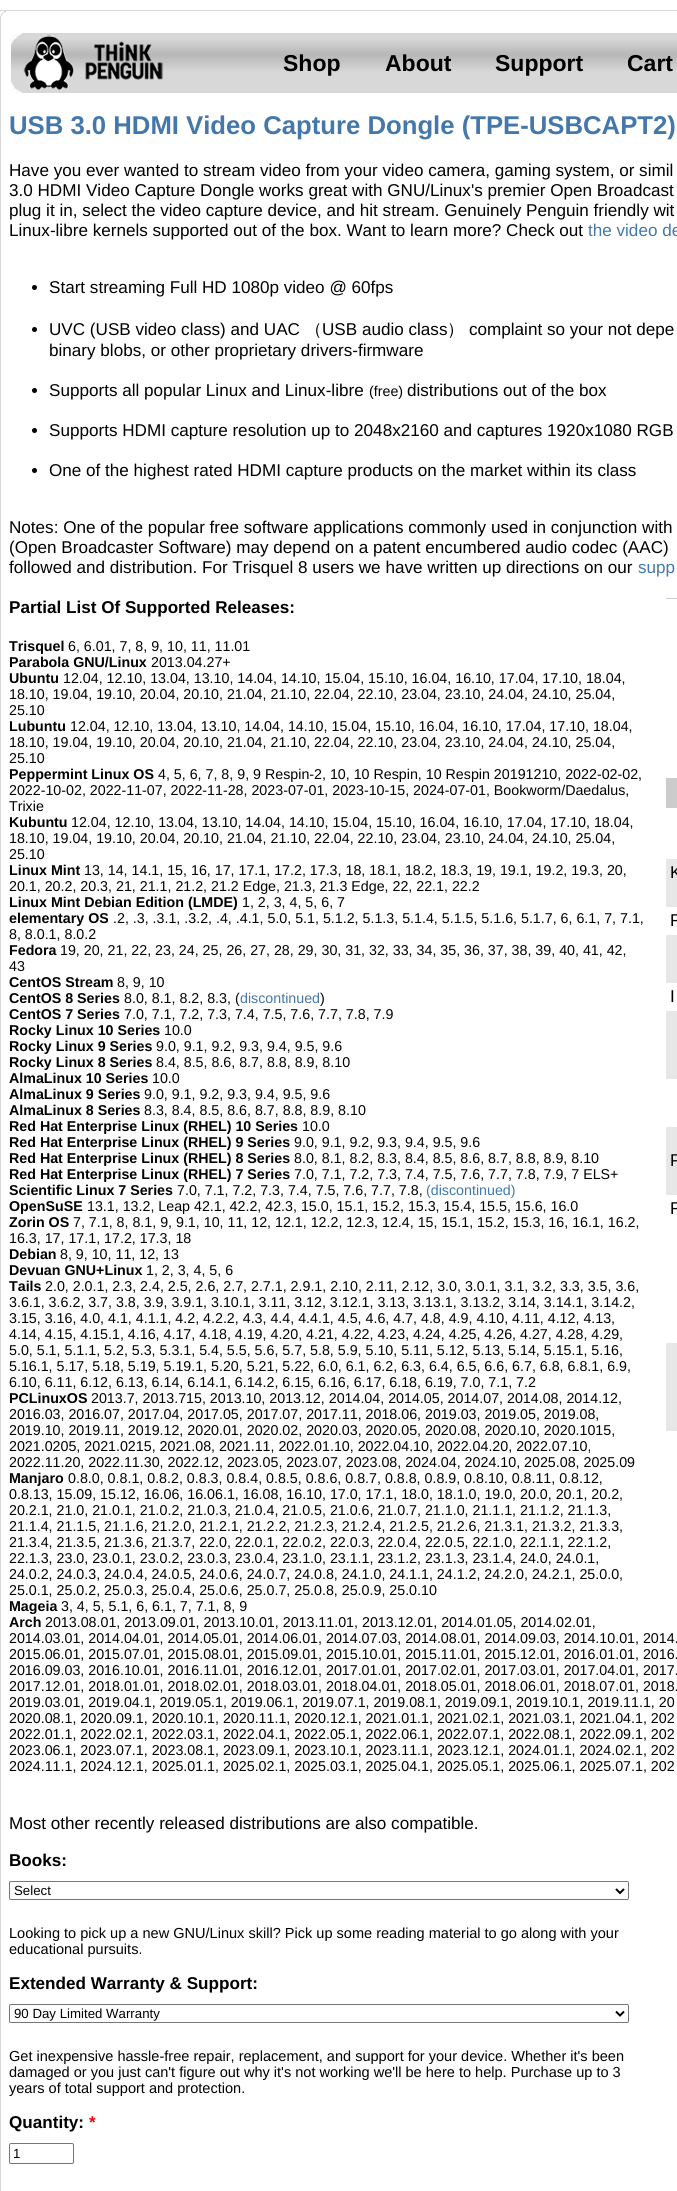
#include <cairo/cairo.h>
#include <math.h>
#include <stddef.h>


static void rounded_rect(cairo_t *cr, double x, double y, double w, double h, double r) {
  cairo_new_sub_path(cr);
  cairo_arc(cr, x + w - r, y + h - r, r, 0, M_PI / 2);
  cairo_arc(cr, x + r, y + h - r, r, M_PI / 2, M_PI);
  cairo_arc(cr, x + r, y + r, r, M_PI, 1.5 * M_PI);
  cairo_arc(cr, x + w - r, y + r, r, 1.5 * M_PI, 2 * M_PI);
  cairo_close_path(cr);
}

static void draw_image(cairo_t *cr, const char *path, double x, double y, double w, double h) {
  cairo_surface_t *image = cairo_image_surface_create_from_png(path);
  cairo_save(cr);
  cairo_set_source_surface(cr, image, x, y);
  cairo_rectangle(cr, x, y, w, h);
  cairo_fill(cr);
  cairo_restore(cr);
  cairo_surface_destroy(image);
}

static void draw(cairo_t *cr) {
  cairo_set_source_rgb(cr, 1, 1, 1);
  cairo_paint(cr);
  cairo_set_source_rgb(cr, 216 / 255.0, 216 / 255.0, 216 / 255.0);
  cairo_rectangle(cr, 0, 10, 677, 1);
  cairo_fill(cr);
  cairo_rectangle(cr, 0, 16, 1, 2175);
  cairo_fill(cr);
  cairo_set_source_rgb(cr, 250 / 255.0, 250 / 255.0, 250 / 255.0);
  cairo_rectangle(cr, 0, 11, 5, 5);
  cairo_fill(cr);
  cairo_set_source_rgb(cr, 1, 1, 1);
  cairo_rectangle(cr, 1, 11, 4, 5);
  cairo_fill(cr);
  draw_image(cr, "images/1.png", 1, 11, 5, 5);
  draw_image(cr, "images/2.png", 22, 33, 655, 60);
  draw_image(cr, "images/3.png", 11, 33, 11, 60);
  draw_image(cr, "images/4.png", 23, 35, 141, 56);
  cairo_set_source_rgb(cr, 0, 0, 0);
  cairo_arc(cr, 34.5, 287.5, 2.5, 0, 2 * M_PI);
  cairo_fill(cr);
  cairo_arc(cr, 34.5, 329.5, 2.5, 0, 2 * M_PI);
  cairo_fill(cr);
  cairo_arc(cr, 34.5, 390.5, 2.5, 0, 2 * M_PI);
  cairo_fill(cr);
  cairo_arc(cr, 34.5, 430.5, 2.5, 0, 2 * M_PI);
  cairo_fill(cr);
  cairo_arc(cr, 34.5, 470.5, 2.5, 0, 2 * M_PI);
  cairo_fill(cr);
  cairo_set_source_rgb(cr, 204 / 255.0, 204 / 255.0, 204 / 255.0);
  cairo_rectangle(cr, 666, 778, 11, 30);
  cairo_fill(cr);
  cairo_rectangle(cr, 666, 598, 11, 1);
  cairo_fill(cr);
  cairo_set_source_rgb(cr, 231 / 255.0, 231 / 255.0, 231 / 255.0);
  cairo_rectangle(cr, 666, 859, 11, 48);
  cairo_fill(cr);
  cairo_rectangle(cr, 666, 935, 11, 48);
  cairo_fill(cr);
  cairo_rectangle(cr, 666, 1011, 11, 68);
  cairo_fill(cr);
  cairo_rectangle(cr, 666, 1127, 11, 68);
  cairo_fill(cr);
  cairo_rectangle(cr, 666, 1343, 11, 88);
  cairo_fill(cr);
  rounded_rect(cr, 9.5, 1881.5, 619, 18, 1.5);
  cairo_set_source_rgb(cr, 118 / 255.0, 118 / 255.0, 118 / 255.0);
  cairo_set_line_width(cr, 1);
  cairo_stroke(cr);
  cairo_new_path(cr);
  cairo_move_to(cr, 616, 1889);
  cairo_line_to(cr, 620, 1893);
  cairo_line_to(cr, 624, 1889);
  cairo_set_source_rgb(cr, 0, 0, 0);
  cairo_set_line_width(cr, 2);
  cairo_stroke(cr);
  rounded_rect(cr, 9.5, 2004.5, 619, 18, 1.5);
  cairo_set_source_rgb(cr, 118 / 255.0, 118 / 255.0, 118 / 255.0);
  cairo_set_line_width(cr, 1);
  cairo_stroke(cr);
  cairo_new_path(cr);
  cairo_move_to(cr, 616, 2011.5);
  cairo_line_to(cr, 620, 2015.5);
  cairo_line_to(cr, 624, 2011.5);
  cairo_set_source_rgb(cr, 0, 0, 0);
  cairo_set_line_width(cr, 2);
  cairo_stroke(cr);
  rounded_rect(cr, 9.5, 2143.5, 64, 20, 1.5);
  cairo_set_source_rgb(cr, 118 / 255.0, 118 / 255.0, 118 / 255.0);
  cairo_set_line_width(cr, 1);
  cairo_stroke(cr);
  cairo_select_font_face(cr, "Liberation Sans", CAIRO_FONT_SLANT_NORMAL, CAIRO_FONT_WEIGHT_BOLD);
  cairo_set_font_size(cr, 23);
  cairo_set_source_rgb(cr, 0, 0, 0);
  cairo_move_to(cr, 283, 71);
  cairo_show_text(cr, "Shop");
  cairo_move_to(cr, 385, 71);
  cairo_show_text(cr, "About");
  cairo_move_to(cr, 495, 71);
  cairo_show_text(cr, "Support");
  cairo_move_to(cr, 627, 71);
  cairo_show_text(cr, "Cart");
  cairo_set_font_size(cr, 25.7);
  cairo_set_source_rgb(cr, 68 / 255.0, 119 / 255.0, 170 / 255.0);
  cairo_move_to(cr, 9, 134);
  cairo_show_text(cr, "USB 3.0 HDMI Video Capture Dongle (TPE-USBCAPT2)");
  cairo_select_font_face(cr, "Liberation Sans", CAIRO_FONT_SLANT_NORMAL, CAIRO_FONT_WEIGHT_NORMAL);
  cairo_set_font_size(cr, 17.1);
  cairo_set_source_rgb(cr, 0, 0, 0);
  cairo_move_to(cr, 9, 176);
  cairo_show_text(cr, "Have you ever wanted to stream video from your video camera, gaming system, or simil");
  cairo_move_to(cr, 9, 196);
  cairo_show_text(cr, "3.0 HDMI Video Capture Dongle works great with GNU/Linux's premier Open Broadcast");
  cairo_move_to(cr, 9, 216);
  cairo_show_text(cr, "plug it in, select the video capture device, and hit stream. Genuinely Penguin friendly wit");
  cairo_move_to(cr, 9, 236);
  cairo_show_text(cr, "Linux-libre kernels supported out of the box. Want to learn more? Check out");
  cairo_set_source_rgb(cr, 68 / 255.0, 119 / 255.0, 170 / 255.0);
  cairo_move_to(cr, 588, 236);
  cairo_show_text(cr, "the video de");
  cairo_set_source_rgb(cr, 0, 0, 0);
  cairo_move_to(cr, 49, 293);
  cairo_show_text(cr, "Start streaming Full HD 1080p video @ 60fps");
  cairo_move_to(cr, 49, 335);
  cairo_show_text(cr, "UVC (USB video class) and UAC");
  cairo_select_font_face(cr, "WenQuanYi Zen Hei Medium", CAIRO_FONT_SLANT_NORMAL, CAIRO_FONT_WEIGHT_NORMAL);
  cairo_move_to(cr, 305, 335);
  cairo_show_text(cr, "（");
  cairo_select_font_face(cr, "Liberation Sans", CAIRO_FONT_SLANT_NORMAL, CAIRO_FONT_WEIGHT_NORMAL);
  cairo_move_to(cr, 322, 335);
  cairo_show_text(cr, "USB audio class");
  cairo_select_font_face(cr, "WenQuanYi Zen Hei Medium", CAIRO_FONT_SLANT_NORMAL, CAIRO_FONT_WEIGHT_NORMAL);
  cairo_move_to(cr, 447, 335);
  cairo_show_text(cr, "）");
  cairo_select_font_face(cr, "Liberation Sans", CAIRO_FONT_SLANT_NORMAL, CAIRO_FONT_WEIGHT_NORMAL);
  cairo_move_to(cr, 469, 335);
  cairo_show_text(cr, "complaint so your not depe");
  cairo_move_to(cr, 49, 356);
  cairo_show_text(cr, "binary blobs, or other proprietary drivers-firmware");
  cairo_move_to(cr, 49, 396);
  cairo_show_text(cr, "Supports all popular Linux and Linux-libre");
  cairo_set_font_size(cr, 14.25);
  cairo_move_to(cr, 369, 396);
  cairo_show_text(cr, "(free)");
  cairo_set_font_size(cr, 17.1);
  cairo_move_to(cr, 407, 396);
  cairo_show_text(cr, "distributions out of the box");
  cairo_move_to(cr, 49, 436);
  cairo_show_text(cr, "Supports HDMI capture resolution up to 2048x2160 and captures 1920x1080 RGB");
  cairo_move_to(cr, 49, 476);
  cairo_show_text(cr, "One of the highest rated HDMI capture products on the market within its class");
  cairo_move_to(cr, 9, 533);
  cairo_show_text(cr, "Notes: One of the popular free software applications commonly used in conjunction with");
  cairo_move_to(cr, 9, 553);
  cairo_show_text(cr, "(Open Broadcaster Software) may depend on a patent encumbered audio codec (AAC)");
  cairo_move_to(cr, 9, 573);
  cairo_show_text(cr, "followed and distribution. For Trisquel 8 users we have written up directions on our");
  cairo_set_source_rgb(cr, 68 / 255.0, 119 / 255.0, 170 / 255.0);
  cairo_move_to(cr, 638, 573);
  cairo_show_text(cr, "supp");
  cairo_select_font_face(cr, "Liberation Sans", CAIRO_FONT_SLANT_NORMAL, CAIRO_FONT_WEIGHT_BOLD);
  cairo_set_source_rgb(cr, 0, 0, 0);
  cairo_move_to(cr, 9, 613);
  cairo_show_text(cr, "Partial List Of Supported Releases:");
  cairo_set_font_size(cr, 14.25);
  cairo_move_to(cr, 9, 651);
  cairo_show_text(cr, "Trisquel");
  cairo_select_font_face(cr, "Liberation Sans", CAIRO_FONT_SLANT_NORMAL, CAIRO_FONT_WEIGHT_NORMAL);
  cairo_move_to(cr, 68, 651);
  cairo_show_text(cr, "6, 6.01, 7, 8, 9, 10, 11, 11.01");
  cairo_select_font_face(cr, "Liberation Sans", CAIRO_FONT_SLANT_NORMAL, CAIRO_FONT_WEIGHT_BOLD);
  cairo_move_to(cr, 9, 667);
  cairo_show_text(cr, "Parabola GNU/Linux");
  cairo_select_font_face(cr, "Liberation Sans", CAIRO_FONT_SLANT_NORMAL, CAIRO_FONT_WEIGHT_NORMAL);
  cairo_move_to(cr, 151, 667);
  cairo_show_text(cr, "2013.04.27+");
  cairo_select_font_face(cr, "Liberation Sans", CAIRO_FONT_SLANT_NORMAL, CAIRO_FONT_WEIGHT_BOLD);
  cairo_move_to(cr, 9, 683);
  cairo_show_text(cr, "Ubuntu");
  cairo_select_font_face(cr, "Liberation Sans", CAIRO_FONT_SLANT_NORMAL, CAIRO_FONT_WEIGHT_NORMAL);
  cairo_move_to(cr, 63, 683);
  cairo_show_text(cr, "12.04, 12.10, 13.04, 13.10, 14.04, 14.10, 15.04, 15.10, 16.04, 16.10, 17.04, 17.10, 18.04,");
  cairo_move_to(cr, 9, 699);
  cairo_show_text(cr, "18.10, 19.04, 19.10, 20.04, 20.10, 21.04, 21.10, 22.04, 22.10, 23.04, 23.10, 24.04, 24.10, 25.04,");
  cairo_move_to(cr, 9, 715);
  cairo_show_text(cr, "25.10");
  cairo_select_font_face(cr, "Liberation Sans", CAIRO_FONT_SLANT_NORMAL, CAIRO_FONT_WEIGHT_BOLD);
  cairo_move_to(cr, 9, 731);
  cairo_show_text(cr, "Lubuntu");
  cairo_select_font_face(cr, "Liberation Sans", CAIRO_FONT_SLANT_NORMAL, CAIRO_FONT_WEIGHT_NORMAL);
  cairo_move_to(cr, 70, 731);
  cairo_show_text(cr, "12.04, 12.10, 13.04, 13.10, 14.04, 14.10, 15.04, 15.10, 16.04, 16.10, 17.04, 17.10, 18.04,");
  cairo_move_to(cr, 9, 747);
  cairo_show_text(cr, "18.10, 19.04, 19.10, 20.04, 20.10, 21.04, 21.10, 22.04, 22.10, 23.04, 23.10, 24.04, 24.10, 25.04,");
  cairo_move_to(cr, 9, 763);
  cairo_show_text(cr, "25.10");
  cairo_select_font_face(cr, "Liberation Sans", CAIRO_FONT_SLANT_NORMAL, CAIRO_FONT_WEIGHT_BOLD);
  cairo_move_to(cr, 9, 779);
  cairo_show_text(cr, "Peppermint Linux OS");
  cairo_select_font_face(cr, "Liberation Sans", CAIRO_FONT_SLANT_NORMAL, CAIRO_FONT_WEIGHT_NORMAL);
  cairo_move_to(cr, 158, 779);
  cairo_show_text(cr, "4, 5, 6, 7, 8, 9, 9 Respin-2, 10, 10 Respin, 10 Respin 20191210, 2022-02-02,");
  cairo_move_to(cr, 9, 795);
  cairo_show_text(cr, "2022-10-02, 2022-11-07, 2022-11-28, 2023-07-01, 2023-10-15, 2024-07-01, Bookworm/Daedalus,");
  cairo_move_to(cr, 9, 811);
  cairo_show_text(cr, "Trixie");
  cairo_select_font_face(cr, "Liberation Sans", CAIRO_FONT_SLANT_NORMAL, CAIRO_FONT_WEIGHT_BOLD);
  cairo_move_to(cr, 9, 827);
  cairo_show_text(cr, "Kubuntu");
  cairo_select_font_face(cr, "Liberation Sans", CAIRO_FONT_SLANT_NORMAL, CAIRO_FONT_WEIGHT_NORMAL);
  cairo_move_to(cr, 71, 827);
  cairo_show_text(cr, "12.04, 12.10, 13.04, 13.10, 14.04, 14.10, 15.04, 15.10, 16.04, 16.10, 17.04, 17.10, 18.04,");
  cairo_move_to(cr, 9, 843);
  cairo_show_text(cr, "18.10, 19.04, 19.10, 20.04, 20.10, 21.04, 21.10, 22.04, 22.10, 23.04, 23.10, 24.04, 24.10, 25.04,");
  cairo_move_to(cr, 9, 859);
  cairo_show_text(cr, "25.10");
  cairo_select_font_face(cr, "Liberation Sans", CAIRO_FONT_SLANT_NORMAL, CAIRO_FONT_WEIGHT_BOLD);
  cairo_move_to(cr, 9, 875);
  cairo_show_text(cr, "Linux Mint");
  cairo_select_font_face(cr, "Liberation Sans", CAIRO_FONT_SLANT_NORMAL, CAIRO_FONT_WEIGHT_NORMAL);
  cairo_move_to(cr, 84, 875);
  cairo_show_text(cr, "13, 14, 14.1, 15, 16, 17, 17.1, 17.2, 17.3, 18, 18.1, 18.2, 18.3, 19, 19.1, 19.2, 19.3, 20,");
  cairo_set_font_size(cr, 17.1);
  cairo_move_to(cr, 670, 878);
  cairo_show_text(cr, "K");
  cairo_move_to(cr, 670, 926);
  cairo_show_text(cr, "F");
  cairo_move_to(cr, 670, 1002);
  cairo_show_text(cr, "I");
  cairo_move_to(cr, 670, 1166);
  cairo_show_text(cr, "P");
  cairo_move_to(cr, 670, 1214);
  cairo_show_text(cr, "F");
  cairo_set_font_size(cr, 14.25);
  cairo_move_to(cr, 9, 891);
  cairo_show_text(cr, "20.1, 20.2, 20.3, 21, 21.1, 21.2, 21.2 Edge, 21.3, 21.3 Edge, 22, 22.1, 22.2");
  cairo_select_font_face(cr, "Liberation Sans", CAIRO_FONT_SLANT_NORMAL, CAIRO_FONT_WEIGHT_BOLD);
  cairo_move_to(cr, 9, 907);
  cairo_show_text(cr, "Linux Mint Debian Edition (LMDE)");
  cairo_select_font_face(cr, "Liberation Sans", CAIRO_FONT_SLANT_NORMAL, CAIRO_FONT_WEIGHT_NORMAL);
  cairo_move_to(cr, 242, 907);
  cairo_show_text(cr, "1, 2, 3, 4, 5, 6, 7");
  cairo_select_font_face(cr, "Liberation Sans", CAIRO_FONT_SLANT_NORMAL, CAIRO_FONT_WEIGHT_BOLD);
  cairo_move_to(cr, 9, 923);
  cairo_show_text(cr, "elementary OS");
  cairo_select_font_face(cr, "Liberation Sans", CAIRO_FONT_SLANT_NORMAL, CAIRO_FONT_WEIGHT_NORMAL);
  cairo_move_to(cr, 113, 923);
  cairo_show_text(cr, ".2, .3, .3.1, .3.2, .4, .4.1, 5.0, 5.1, 5.1.2, 5.1.3, 5.1.4, 5.1.5, 5.1.6, 5.1.7, 6, 6.1, 7, 7.1,");
  cairo_move_to(cr, 9, 939);
  cairo_show_text(cr, "8, 8.0.1, 8.0.2");
  cairo_select_font_face(cr, "Liberation Sans", CAIRO_FONT_SLANT_NORMAL, CAIRO_FONT_WEIGHT_BOLD);
  cairo_move_to(cr, 9, 955);
  cairo_show_text(cr, "Fedora");
  cairo_select_font_face(cr, "Liberation Sans", CAIRO_FONT_SLANT_NORMAL, CAIRO_FONT_WEIGHT_NORMAL);
  cairo_move_to(cr, 60, 955);
  cairo_show_text(cr, "19, 20, 21, 22, 23, 24, 25, 26, 27, 28, 29, 30, 31, 32, 33, 34, 35, 36, 37, 38, 39, 40, 41, 42,");
  cairo_move_to(cr, 9, 971);
  cairo_show_text(cr, "43");
  cairo_select_font_face(cr, "Liberation Sans", CAIRO_FONT_SLANT_NORMAL, CAIRO_FONT_WEIGHT_BOLD);
  cairo_move_to(cr, 9, 987);
  cairo_show_text(cr, "CentOS Stream");
  cairo_select_font_face(cr, "Liberation Sans", CAIRO_FONT_SLANT_NORMAL, CAIRO_FONT_WEIGHT_NORMAL);
  cairo_move_to(cr, 117, 987);
  cairo_show_text(cr, "8, 9, 10");
  cairo_select_font_face(cr, "Liberation Sans", CAIRO_FONT_SLANT_NORMAL, CAIRO_FONT_WEIGHT_BOLD);
  cairo_move_to(cr, 9, 1003);
  cairo_show_text(cr, "CentOS 8 Series");
  cairo_select_font_face(cr, "Liberation Sans", CAIRO_FONT_SLANT_NORMAL, CAIRO_FONT_WEIGHT_NORMAL);
  cairo_move_to(cr, 124, 1003);
  cairo_show_text(cr, "8.0, 8.1, 8.2, 8.3, (");
  cairo_set_source_rgb(cr, 68 / 255.0, 119 / 255.0, 170 / 255.0);
  cairo_move_to(cr, 240, 1003);
  cairo_show_text(cr, "discontinued");
  cairo_set_source_rgb(cr, 0, 0, 0);
  cairo_move_to(cr, 320, 1003);
  cairo_show_text(cr, ")");
  cairo_select_font_face(cr, "Liberation Sans", CAIRO_FONT_SLANT_NORMAL, CAIRO_FONT_WEIGHT_BOLD);
  cairo_move_to(cr, 9, 1019);
  cairo_show_text(cr, "CentOS 7 Series");
  cairo_select_font_face(cr, "Liberation Sans", CAIRO_FONT_SLANT_NORMAL, CAIRO_FONT_WEIGHT_NORMAL);
  cairo_move_to(cr, 124, 1019);
  cairo_show_text(cr, "7.0, 7.1, 7.2, 7.3, 7.4, 7.5, 7.6, 7.7, 7.8, 7.9");
  cairo_select_font_face(cr, "Liberation Sans", CAIRO_FONT_SLANT_NORMAL, CAIRO_FONT_WEIGHT_BOLD);
  cairo_move_to(cr, 9, 1035);
  cairo_show_text(cr, "Rocky Linux 10 Series");
  cairo_select_font_face(cr, "Liberation Sans", CAIRO_FONT_SLANT_NORMAL, CAIRO_FONT_WEIGHT_NORMAL);
  cairo_move_to(cr, 164, 1035);
  cairo_show_text(cr, "10.0");
  cairo_select_font_face(cr, "Liberation Sans", CAIRO_FONT_SLANT_NORMAL, CAIRO_FONT_WEIGHT_BOLD);
  cairo_move_to(cr, 9, 1051);
  cairo_show_text(cr, "Rocky Linux 9 Series");
  cairo_select_font_face(cr, "Liberation Sans", CAIRO_FONT_SLANT_NORMAL, CAIRO_FONT_WEIGHT_NORMAL);
  cairo_move_to(cr, 156, 1051);
  cairo_show_text(cr, "9.0, 9.1, 9.2, 9.3, 9.4, 9.5, 9.6");
  cairo_select_font_face(cr, "Liberation Sans", CAIRO_FONT_SLANT_NORMAL, CAIRO_FONT_WEIGHT_BOLD);
  cairo_move_to(cr, 9, 1067);
  cairo_show_text(cr, "Rocky Linux 8 Series");
  cairo_select_font_face(cr, "Liberation Sans", CAIRO_FONT_SLANT_NORMAL, CAIRO_FONT_WEIGHT_NORMAL);
  cairo_move_to(cr, 156, 1067);
  cairo_show_text(cr, "8.4, 8.5, 8.6, 8.7, 8.8, 8.9, 8.10");
  cairo_select_font_face(cr, "Liberation Sans", CAIRO_FONT_SLANT_NORMAL, CAIRO_FONT_WEIGHT_BOLD);
  cairo_move_to(cr, 9, 1083);
  cairo_show_text(cr, "AlmaLinux 10 Series");
  cairo_select_font_face(cr, "Liberation Sans", CAIRO_FONT_SLANT_NORMAL, CAIRO_FONT_WEIGHT_NORMAL);
  cairo_move_to(cr, 152, 1083);
  cairo_show_text(cr, "10.0");
  cairo_select_font_face(cr, "Liberation Sans", CAIRO_FONT_SLANT_NORMAL, CAIRO_FONT_WEIGHT_BOLD);
  cairo_move_to(cr, 9, 1099);
  cairo_show_text(cr, "AlmaLinux 9 Series");
  cairo_select_font_face(cr, "Liberation Sans", CAIRO_FONT_SLANT_NORMAL, CAIRO_FONT_WEIGHT_NORMAL);
  cairo_move_to(cr, 144, 1099);
  cairo_show_text(cr, "9.0, 9.1, 9.2, 9.3, 9.4, 9.5, 9.6");
  cairo_select_font_face(cr, "Liberation Sans", CAIRO_FONT_SLANT_NORMAL, CAIRO_FONT_WEIGHT_BOLD);
  cairo_move_to(cr, 9, 1115);
  cairo_show_text(cr, "AlmaLinux 8 Series");
  cairo_select_font_face(cr, "Liberation Sans", CAIRO_FONT_SLANT_NORMAL, CAIRO_FONT_WEIGHT_NORMAL);
  cairo_move_to(cr, 144, 1115);
  cairo_show_text(cr, "8.3, 8.4, 8.5, 8.6, 8.7, 8.8, 8.9, 8.10");
  cairo_select_font_face(cr, "Liberation Sans", CAIRO_FONT_SLANT_NORMAL, CAIRO_FONT_WEIGHT_BOLD);
  cairo_move_to(cr, 9, 1131);
  cairo_show_text(cr, "Red Hat Enterprise Linux (RHEL) 10 Series");
  cairo_select_font_face(cr, "Liberation Sans", CAIRO_FONT_SLANT_NORMAL, CAIRO_FONT_WEIGHT_NORMAL);
  cairo_move_to(cr, 302, 1131);
  cairo_show_text(cr, "10.0");
  cairo_select_font_face(cr, "Liberation Sans", CAIRO_FONT_SLANT_NORMAL, CAIRO_FONT_WEIGHT_BOLD);
  cairo_move_to(cr, 9, 1147);
  cairo_show_text(cr, "Red Hat Enterprise Linux (RHEL) 9 Series");
  cairo_select_font_face(cr, "Liberation Sans", CAIRO_FONT_SLANT_NORMAL, CAIRO_FONT_WEIGHT_NORMAL);
  cairo_move_to(cr, 294, 1147);
  cairo_show_text(cr, "9.0, 9.1, 9.2, 9.3, 9.4, 9.5, 9.6");
  cairo_select_font_face(cr, "Liberation Sans", CAIRO_FONT_SLANT_NORMAL, CAIRO_FONT_WEIGHT_BOLD);
  cairo_move_to(cr, 9, 1163);
  cairo_show_text(cr, "Red Hat Enterprise Linux (RHEL) 8 Series");
  cairo_select_font_face(cr, "Liberation Sans", CAIRO_FONT_SLANT_NORMAL, CAIRO_FONT_WEIGHT_NORMAL);
  cairo_move_to(cr, 294, 1163);
  cairo_show_text(cr, "8.0, 8.1, 8.2, 8.3, 8.4, 8.5, 8.6, 8.7, 8.8, 8.9, 8.10");
  cairo_select_font_face(cr, "Liberation Sans", CAIRO_FONT_SLANT_NORMAL, CAIRO_FONT_WEIGHT_BOLD);
  cairo_move_to(cr, 9, 1179);
  cairo_show_text(cr, "Red Hat Enterprise Linux (RHEL) 7 Series");
  cairo_select_font_face(cr, "Liberation Sans", CAIRO_FONT_SLANT_NORMAL, CAIRO_FONT_WEIGHT_NORMAL);
  cairo_move_to(cr, 294, 1179);
  cairo_show_text(cr, "7.0, 7.1, 7.2, 7.3, 7.4, 7.5, 7.6, 7.7, 7.8, 7.9, 7 ELS+");
  cairo_select_font_face(cr, "Liberation Sans", CAIRO_FONT_SLANT_NORMAL, CAIRO_FONT_WEIGHT_BOLD);
  cairo_move_to(cr, 9, 1195);
  cairo_show_text(cr, "Scientific Linux 7 Series");
  cairo_select_font_face(cr, "Liberation Sans", CAIRO_FONT_SLANT_NORMAL, CAIRO_FONT_WEIGHT_NORMAL);
  cairo_move_to(cr, 177, 1195);
  cairo_show_text(cr, "7.0, 7.1, 7.2, 7.3, 7.4, 7.5, 7.6, 7.7, 7.8,");
  cairo_set_source_rgb(cr, 68 / 255.0, 119 / 255.0, 170 / 255.0);
  cairo_move_to(cr, 426, 1195);
  cairo_show_text(cr, "(discontinued)");
  cairo_select_font_face(cr, "Liberation Sans", CAIRO_FONT_SLANT_NORMAL, CAIRO_FONT_WEIGHT_BOLD);
  cairo_set_source_rgb(cr, 0, 0, 0);
  cairo_move_to(cr, 9, 1211);
  cairo_show_text(cr, "OpenSuSE");
  cairo_select_font_face(cr, "Liberation Sans", CAIRO_FONT_SLANT_NORMAL, CAIRO_FONT_WEIGHT_NORMAL);
  cairo_move_to(cr, 87, 1211);
  cairo_show_text(cr, "13.1, 13.2, Leap 42.1, 42.2, 42.3, 15.0, 15.1, 15.2, 15.3, 15.4, 15.5, 15.6, 16.0");
  cairo_select_font_face(cr, "Liberation Sans", CAIRO_FONT_SLANT_NORMAL, CAIRO_FONT_WEIGHT_BOLD);
  cairo_move_to(cr, 9, 1227);
  cairo_show_text(cr, "Zorin OS");
  cairo_select_font_face(cr, "Liberation Sans", CAIRO_FONT_SLANT_NORMAL, CAIRO_FONT_WEIGHT_NORMAL);
  cairo_move_to(cr, 73, 1227);
  cairo_show_text(cr, "7, 7.1, 8, 8.1, 9, 9.1, 10, 11, 12, 12.1, 12.2, 12.3, 12.4, 15, 15.1, 15.2, 15.3, 16, 16.1, 16.2,");
  cairo_move_to(cr, 9, 1243);
  cairo_show_text(cr, "16.3, 17, 17.1, 17.2, 17.3, 18");
  cairo_select_font_face(cr, "Liberation Sans", CAIRO_FONT_SLANT_NORMAL, CAIRO_FONT_WEIGHT_BOLD);
  cairo_move_to(cr, 9, 1259);
  cairo_show_text(cr, "Debian");
  cairo_select_font_face(cr, "Liberation Sans", CAIRO_FONT_SLANT_NORMAL, CAIRO_FONT_WEIGHT_NORMAL);
  cairo_move_to(cr, 60, 1259);
  cairo_show_text(cr, "8, 9, 10, 11, 12, 13");
  cairo_select_font_face(cr, "Liberation Sans", CAIRO_FONT_SLANT_NORMAL, CAIRO_FONT_WEIGHT_BOLD);
  cairo_move_to(cr, 9, 1275);
  cairo_show_text(cr, "Devuan GNU+Linux");
  cairo_select_font_face(cr, "Liberation Sans", CAIRO_FONT_SLANT_NORMAL, CAIRO_FONT_WEIGHT_NORMAL);
  cairo_move_to(cr, 146, 1275);
  cairo_show_text(cr, "1, 2, 3, 4, 5, 6");
  cairo_select_font_face(cr, "Liberation Sans", CAIRO_FONT_SLANT_NORMAL, CAIRO_FONT_WEIGHT_BOLD);
  cairo_move_to(cr, 9, 1291);
  cairo_show_text(cr, "Tails");
  cairo_select_font_face(cr, "Liberation Sans", CAIRO_FONT_SLANT_NORMAL, CAIRO_FONT_WEIGHT_NORMAL);
  cairo_move_to(cr, 45, 1291);
  cairo_show_text(cr, "2.0, 2.0.1, 2.3, 2.4, 2.5, 2.6, 2.7, 2.7.1, 2.9.1, 2.10, 2.11, 2.12, 3.0, 3.0.1, 3.1, 3.2, 3.3, 3.5, 3.6,");
  cairo_move_to(cr, 9, 1307);
  cairo_show_text(cr, "3.6.1, 3.6.2, 3.7, 3.8, 3.9, 3.9.1, 3.10.1, 3.11, 3.12, 3.12.1, 3.13, 3.13.1, 3.13.2, 3.14, 3.14.1, 3.14.2,");
  cairo_move_to(cr, 9, 1323);
  cairo_show_text(cr, "3.15, 3.16, 4.0, 4.1, 4.1.1, 4.2, 4.2.2, 4.3, 4.4, 4.4.1, 4.5, 4.6, 4.7, 4.8, 4.9, 4.10, 4.11, 4.12, 4.13,");
  cairo_move_to(cr, 9, 1339);
  cairo_show_text(cr, "4.14, 4.15, 4.15.1, 4.16, 4.17, 4.18, 4.19, 4.20, 4.21, 4.22, 4.23, 4.24, 4.25, 4.26, 4.27, 4.28, 4.29,");
  cairo_move_to(cr, 9, 1355);
  cairo_show_text(cr, "5.0, 5.1, 5.1.1, 5.2, 5.3, 5.3.1, 5.4, 5.5, 5.6, 5.7, 5.8, 5.9, 5.10, 5.11, 5.12, 5.13, 5.14, 5.15.1, 5.16,");
  cairo_move_to(cr, 9, 1371);
  cairo_show_text(cr, "5.16.1, 5.17, 5.18, 5.19, 5.19.1, 5.20, 5.21, 5.22, 6.0, 6.1, 6.2, 6.3, 6.4, 6.5, 6.6, 6.7, 6.8, 6.8.1, 6.9,");
  cairo_move_to(cr, 9, 1387);
  cairo_show_text(cr, "6.10, 6.11, 6.12, 6.13, 6.14, 6.14.1, 6.14.2, 6.15, 6.16, 6.17, 6.18, 6.19, 7.0, 7.1, 7.2");
  cairo_select_font_face(cr, "Liberation Sans", CAIRO_FONT_SLANT_NORMAL, CAIRO_FONT_WEIGHT_BOLD);
  cairo_move_to(cr, 9, 1403);
  cairo_show_text(cr, "PCLinuxOS");
  cairo_select_font_face(cr, "Liberation Sans", CAIRO_FONT_SLANT_NORMAL, CAIRO_FONT_WEIGHT_NORMAL);
  cairo_move_to(cr, 91, 1403);
  cairo_show_text(cr, "2013.7, 2013.715, 2013.10, 2013.12, 2014.04, 2014.05, 2014.07, 2014.08, 2014.12,");
  cairo_move_to(cr, 9, 1419);
  cairo_show_text(cr, "2016.03, 2016.07, 2017.04, 2017.05, 2017.07, 2017.11, 2018.06, 2019.03, 2019.05, 2019.08,");
  cairo_move_to(cr, 9, 1435);
  cairo_show_text(cr, "2019.10, 2019.11, 2019.12, 2020.01, 2020.02, 2020.03, 2020.05, 2020.08, 2020.10, 2020.1015,");
  cairo_move_to(cr, 9, 1451);
  cairo_show_text(cr, "2021.0205, 2021.0215, 2021.08, 2021.11, 2022.01.10, 2022.04.10, 2022.04.20, 2022.07.10,");
  cairo_move_to(cr, 9, 1467);
  cairo_show_text(cr, "2022.11.20, 2022.11.30, 2022.12, 2023.05, 2023.07, 2023.08, 2024.04, 2024.10, 2025.08, 2025.09");
  cairo_select_font_face(cr, "Liberation Sans", CAIRO_FONT_SLANT_NORMAL, CAIRO_FONT_WEIGHT_BOLD);
  cairo_move_to(cr, 9, 1483);
  cairo_show_text(cr, "Manjaro");
  cairo_select_font_face(cr, "Liberation Sans", CAIRO_FONT_SLANT_NORMAL, CAIRO_FONT_WEIGHT_NORMAL);
  cairo_move_to(cr, 68, 1483);
  cairo_show_text(cr, "0.8.0, 0.8.1, 0.8.2, 0.8.3, 0.8.4, 0.8.5, 0.8.6, 0.8.7, 0.8.8, 0.8.9, 0.8.10, 0.8.11, 0.8.12,");
  cairo_move_to(cr, 9, 1499);
  cairo_show_text(cr, "0.8.13, 15.09, 15.12, 16.06, 16.06.1, 16.08, 16.10, 17.0, 17.1, 18.0, 18.1.0, 19.0, 20.0, 20.1, 20.2,");
  cairo_move_to(cr, 9, 1515);
  cairo_show_text(cr, "20.2.1, 21.0, 21.0.1, 21.0.2, 21.0.3, 21.0.4, 21.0.5, 21.0.6, 21.0.7, 21.1.0, 21.1.1, 21.1.2, 21.1.3,");
  cairo_move_to(cr, 9, 1531);
  cairo_show_text(cr, "21.1.4, 21.1.5, 21.1.6, 21.2.0, 21.2.1, 21.2.2, 21.2.3, 21.2.4, 21.2.5, 21.2.6, 21.3.1, 21.3.2, 21.3.3,");
  cairo_move_to(cr, 9, 1547);
  cairo_show_text(cr, "21.3.4, 21.3.5, 21.3.6, 21.3.7, 22.0, 22.0.1, 22.0.2, 22.0.3, 22.0.4, 22.0.5, 22.1.0, 22.1.1, 22.1.2,");
  cairo_move_to(cr, 9, 1563);
  cairo_show_text(cr, "22.1.3, 23.0, 23.0.1, 23.0.2, 23.0.3, 23.0.4, 23.1.0, 23.1.1, 23.1.2, 23.1.3, 23.1.4, 24.0, 24.0.1,");
  cairo_move_to(cr, 9, 1579);
  cairo_show_text(cr, "24.0.2, 24.0.3, 24.0.4, 24.0.5, 24.0.6, 24.0.7, 24.0.8, 24.1.0, 24.1.1, 24.1.2, 24.2.0, 24.2.1, 25.0.0,");
  cairo_move_to(cr, 9, 1595);
  cairo_show_text(cr, "25.0.1, 25.0.2, 25.0.3, 25.0.4, 25.0.6, 25.0.7, 25.0.8, 25.0.9, 25.0.10");
  cairo_select_font_face(cr, "Liberation Sans", CAIRO_FONT_SLANT_NORMAL, CAIRO_FONT_WEIGHT_BOLD);
  cairo_move_to(cr, 9, 1611);
  cairo_show_text(cr, "Mageia");
  cairo_select_font_face(cr, "Liberation Sans", CAIRO_FONT_SLANT_NORMAL, CAIRO_FONT_WEIGHT_NORMAL);
  cairo_move_to(cr, 61, 1611);
  cairo_show_text(cr, "3, 4, 5, 5.1, 6, 6.1, 7, 7.1, 8, 9");
  cairo_select_font_face(cr, "Liberation Sans", CAIRO_FONT_SLANT_NORMAL, CAIRO_FONT_WEIGHT_BOLD);
  cairo_move_to(cr, 9, 1627);
  cairo_show_text(cr, "Arch");
  cairo_select_font_face(cr, "Liberation Sans", CAIRO_FONT_SLANT_NORMAL, CAIRO_FONT_WEIGHT_NORMAL);
  cairo_move_to(cr, 45, 1627);
  cairo_show_text(cr, "2013.08.01, 2013.09.01, 2013.10.01, 2013.11.01, 2013.12.01, 2014.01.05, 2014.02.01,");
  cairo_move_to(cr, 9, 1643);
  cairo_show_text(cr, "2014.03.01, 2014.04.01, 2014.05.01, 2014.06.01, 2014.07.03, 2014.08.01, 2014.09.03, 2014.10.01, 2014.");
  cairo_move_to(cr, 9, 1659);
  cairo_show_text(cr, "2015.06.01, 2015.07.01, 2015.08.01, 2015.09.01, 2015.10.01, 2015.11.01, 2015.12.01, 2016.01.01, 2016.");
  cairo_move_to(cr, 9, 1675);
  cairo_show_text(cr, "2016.09.03, 2016.10.01, 2016.11.01, 2016.12.01, 2017.01.01, 2017.02.01, 2017.03.01, 2017.04.01, 2017.");
  cairo_move_to(cr, 9, 1691);
  cairo_show_text(cr, "2017.12.01, 2018.01.01, 2018.02.01, 2018.03.01, 2018.04.01, 2018.05.01, 2018.06.01, 2018.07.01, 2018.");
  cairo_move_to(cr, 9, 1707);
  cairo_show_text(cr, "2019.03.01, 2019.04.1, 2019.05.1, 2019.06.1, 2019.07.1, 2019.08.1, 2019.09.1, 2019.10.1, 2019.11.1, 20");
  cairo_move_to(cr, 9, 1723);
  cairo_show_text(cr, "2020.08.1, 2020.09.1, 2020.10.1, 2020.11.1, 2020.12.1, 2021.01.1, 2021.02.1, 2021.03.1, 2021.04.1, 202");
  cairo_move_to(cr, 9, 1739);
  cairo_show_text(cr, "2022.01.1, 2022.02.1, 2022.03.1, 2022.04.1, 2022.05.1, 2022.06.1, 2022.07.1, 2022.08.1, 2022.09.1, 202");
  cairo_move_to(cr, 9, 1755);
  cairo_show_text(cr, "2023.06.1, 2023.07.1, 2023.08.1, 2023.09.1, 2023.10.1, 2023.11.1, 2023.12.1, 2024.01.1, 2024.02.1, 202");
  cairo_move_to(cr, 9, 1771);
  cairo_show_text(cr, "2024.11.1, 2024.12.1, 2025.01.1, 2025.02.1, 2025.03.1, 2025.04.1, 2025.05.1, 2025.06.1, 2025.07.1, 202");
  cairo_set_font_size(cr, 17.1);
  cairo_move_to(cr, 9, 1829);
  cairo_show_text(cr, "Most other recently released distributions are also compatible.");
  cairo_select_font_face(cr, "Liberation Sans", CAIRO_FONT_SLANT_NORMAL, CAIRO_FONT_WEIGHT_BOLD);
  cairo_move_to(cr, 9, 1866);
  cairo_show_text(cr, "Books:");
  cairo_select_font_face(cr, "Liberation Sans", CAIRO_FONT_SLANT_NORMAL, CAIRO_FONT_WEIGHT_NORMAL);
  cairo_set_font_size(cr, 13.25);
  cairo_move_to(cr, 14, 1895);
  cairo_show_text(cr, "Select");
  cairo_set_font_size(cr, 14.55);
  cairo_move_to(cr, 9, 1938);
  cairo_show_text(cr, "Looking to pick up a new GNU/Linux skill? Pick up some reading material to go along with your");
  cairo_move_to(cr, 9, 1954);
  cairo_show_text(cr, "educational pursuits.");
  cairo_select_font_face(cr, "Liberation Sans", CAIRO_FONT_SLANT_NORMAL, CAIRO_FONT_WEIGHT_BOLD);
  cairo_set_font_size(cr, 17.1);
  cairo_move_to(cr, 9, 1989);
  cairo_show_text(cr, "Extended Warranty & Support:");
  cairo_select_font_face(cr, "Liberation Sans", CAIRO_FONT_SLANT_NORMAL, CAIRO_FONT_WEIGHT_NORMAL);
  cairo_set_font_size(cr, 13.25);
  cairo_move_to(cr, 14, 2018);
  cairo_show_text(cr, "90 Day Limited Warranty");
  cairo_set_font_size(cr, 14.55);
  cairo_move_to(cr, 9, 2061);
  cairo_show_text(cr, "Get inexpensive hassle-free repair, replacement, and support for your device. Whether it's been");
  cairo_move_to(cr, 9, 2077);
  cairo_show_text(cr, "damaged or you just can't figure out why it's not working we'll be here to help. Purchase up to 3");
  cairo_move_to(cr, 9, 2093);
  cairo_show_text(cr, "years of total support and protection.");
  cairo_select_font_face(cr, "Liberation Sans", CAIRO_FONT_SLANT_NORMAL, CAIRO_FONT_WEIGHT_BOLD);
  cairo_set_font_size(cr, 17.1);
  cairo_move_to(cr, 9, 2128);
  cairo_show_text(cr, "Quantity:");
  cairo_set_source_rgb(cr, 1, 0, 0);
  cairo_move_to(cr, 89, 2128);
  cairo_show_text(cr, "*");
  cairo_select_font_face(cr, "Liberation Sans", CAIRO_FONT_SLANT_NORMAL, CAIRO_FONT_WEIGHT_NORMAL);
  cairo_set_font_size(cr, 13.25);
  cairo_set_source_rgb(cr, 0, 0, 0);
  cairo_move_to(cr, 13, 2158);
  cairo_show_text(cr, "1");
}

int main(void) {
  cairo_surface_t *surface = cairo_image_surface_create(CAIRO_FORMAT_RGB24, 677, 2191);
  cairo_t *cr = cairo_create(surface);
  cairo_font_options_t *options = cairo_font_options_create();
  cairo_font_options_set_hint_metrics(options, CAIRO_HINT_METRICS_OFF);
  cairo_font_options_set_hint_style(options, CAIRO_HINT_STYLE_NONE);
  cairo_set_font_options(cr, options);
  cairo_set_miter_limit(cr, 4);
  draw(cr);
  cairo_surface_write_to_png(surface, "out.png");
  cairo_font_options_destroy(options);
  cairo_destroy(cr);
  cairo_surface_destroy(surface);
  return 0;
}
